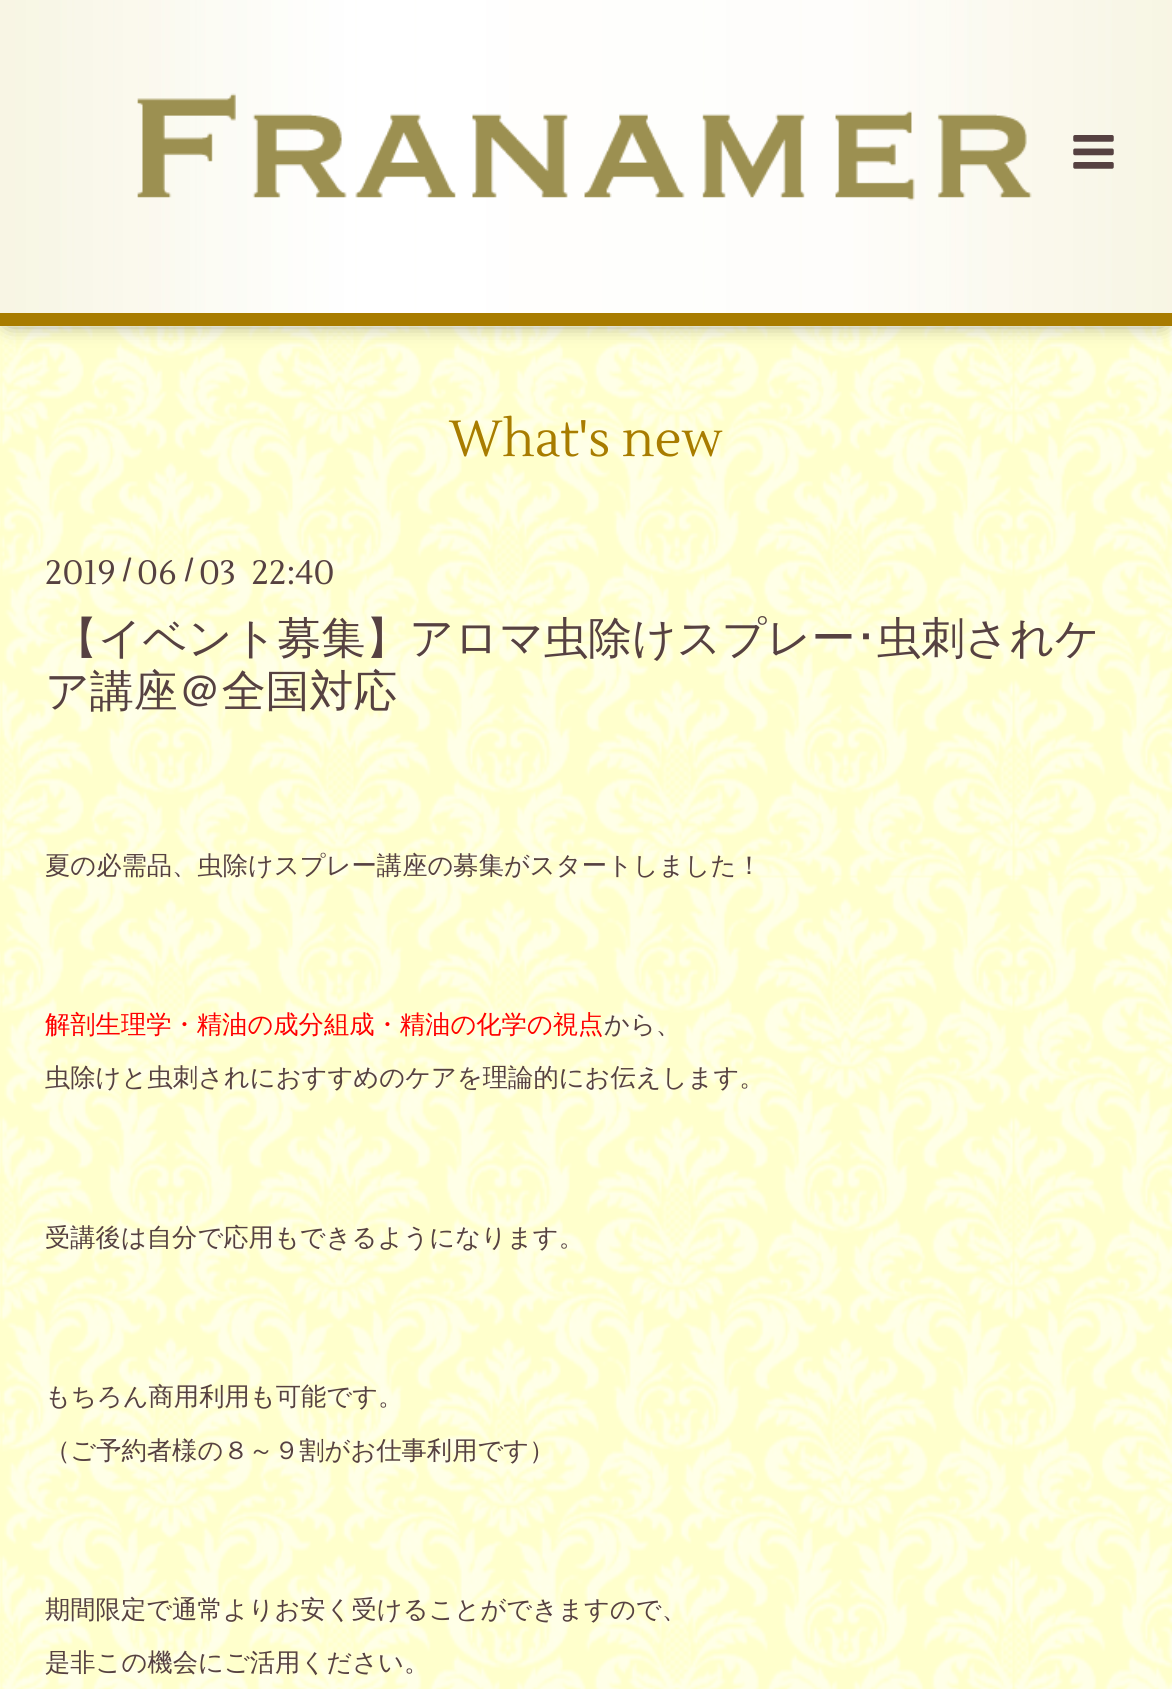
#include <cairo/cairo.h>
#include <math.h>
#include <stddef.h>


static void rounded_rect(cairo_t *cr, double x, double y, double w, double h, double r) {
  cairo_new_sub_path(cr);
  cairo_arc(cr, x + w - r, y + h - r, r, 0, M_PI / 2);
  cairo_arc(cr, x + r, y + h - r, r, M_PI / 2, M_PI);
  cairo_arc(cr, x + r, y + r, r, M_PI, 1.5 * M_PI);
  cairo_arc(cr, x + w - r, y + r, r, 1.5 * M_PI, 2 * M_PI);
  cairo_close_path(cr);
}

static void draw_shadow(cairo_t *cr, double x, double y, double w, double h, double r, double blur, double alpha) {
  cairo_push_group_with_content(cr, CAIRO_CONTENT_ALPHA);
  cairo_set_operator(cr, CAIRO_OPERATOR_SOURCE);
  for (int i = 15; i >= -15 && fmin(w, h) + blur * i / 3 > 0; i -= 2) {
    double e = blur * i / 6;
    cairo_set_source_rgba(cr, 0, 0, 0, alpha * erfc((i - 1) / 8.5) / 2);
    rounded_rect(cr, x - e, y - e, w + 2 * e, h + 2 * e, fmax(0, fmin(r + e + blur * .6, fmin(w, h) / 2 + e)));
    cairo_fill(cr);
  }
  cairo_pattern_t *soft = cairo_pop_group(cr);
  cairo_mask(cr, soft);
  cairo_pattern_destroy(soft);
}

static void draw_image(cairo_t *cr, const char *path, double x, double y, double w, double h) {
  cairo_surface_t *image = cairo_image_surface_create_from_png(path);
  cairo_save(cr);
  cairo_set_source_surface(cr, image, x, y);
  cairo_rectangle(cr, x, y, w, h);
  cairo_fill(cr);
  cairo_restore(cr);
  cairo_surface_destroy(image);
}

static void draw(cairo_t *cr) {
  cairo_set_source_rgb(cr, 1, 1, 204 / 255.0);
  cairo_paint(cr);
  draw_image(cr, "images/1.png", 0, 326, 1172, 1363);
  cairo_set_source_rgb(cr, 0, 0, 0);
  draw_shadow(cr, 9, 11, 1154, 309, 0, 11, 0.6);
  draw_image(cr, "images/2.png", 0, 0, 1172, 327);
  cairo_set_source_rgb(cr, 168 / 255.0, 124 / 255.0, 0);
  cairo_rectangle(cr, 0, 313, 1172, 13);
  cairo_fill(cr);
  draw_image(cr, "images/3.png", 137, 93, 895, 108);
  draw_image(cr, "images/4.png", 1073, 135, 41, 34);
  cairo_select_font_face(cr, "Lustria", CAIRO_FONT_SLANT_NORMAL, CAIRO_FONT_WEIGHT_NORMAL);
  cairo_set_font_size(cr, 50.5);
  cairo_move_to(cr, 449, 456);
  cairo_show_text(cr, "What's new");
  cairo_set_font_size(cr, 33.75);
  cairo_set_source_rgb(cr, 86 / 255.0, 65 / 255.0, 65 / 255.0);
  cairo_move_to(cr, 45, 584);
  cairo_show_text(cr, "2019");
  cairo_select_font_face(cr, "Lustria", CAIRO_FONT_SLANT_NORMAL, CAIRO_FONT_WEIGHT_BOLD);
  cairo_set_font_size(cr, 27);
  cairo_move_to(cr, 122, 579);
  cairo_show_text(cr, "/");
  cairo_select_font_face(cr, "Lustria", CAIRO_FONT_SLANT_NORMAL, CAIRO_FONT_WEIGHT_NORMAL);
  cairo_set_font_size(cr, 33.75);
  cairo_move_to(cr, 137, 584);
  cairo_show_text(cr, "06");
  cairo_select_font_face(cr, "Lustria", CAIRO_FONT_SLANT_NORMAL, CAIRO_FONT_WEIGHT_BOLD);
  cairo_set_font_size(cr, 27);
  cairo_move_to(cr, 184, 579);
  cairo_show_text(cr, "/");
  cairo_select_font_face(cr, "Lustria", CAIRO_FONT_SLANT_NORMAL, CAIRO_FONT_WEIGHT_NORMAL);
  cairo_set_font_size(cr, 33.75);
  cairo_move_to(cr, 199, 584);
  cairo_show_text(cr, "03  22:40");
  cairo_select_font_face(cr, "WenQuanYi Zen Hei Medium", CAIRO_FONT_SLANT_NORMAL, CAIRO_FONT_WEIGHT_NORMAL);
  cairo_set_font_size(cr, 43.9);
  cairo_move_to(cr, 54, 653);
  cairo_show_text(cr, "【イベント募集】アロマ虫除けスプレー");
  cairo_select_font_face(cr, "IPAPGothic", CAIRO_FONT_SLANT_NORMAL, CAIRO_FONT_WEIGHT_NORMAL);
  cairo_move_to(cr, 855, 653);
  cairo_show_text(cr, "･");
  cairo_select_font_face(cr, "WenQuanYi Zen Hei Medium", CAIRO_FONT_SLANT_NORMAL, CAIRO_FONT_WEIGHT_NORMAL);
  cairo_move_to(cr, 877, 653);
  cairo_show_text(cr, "虫刺されケ");
  cairo_move_to(cr, 45, 706);
  cairo_show_text(cr, "ア講座＠全国対応");
  cairo_set_font_size(cr, 25.3);
  cairo_move_to(cr, 45, 874);
  cairo_show_text(cr, "夏の必需品、虫除けスプレー講座の募集がスタートしました！");
  cairo_set_source_rgb(cr, 1, 0, 0);
  cairo_move_to(cr, 45, 1033);
  cairo_show_text(cr, "解剖生理学・精油の成分組成・精油の化学の視点");
  cairo_set_source_rgb(cr, 86 / 255.0, 65 / 255.0, 65 / 255.0);
  cairo_move_to(cr, 604, 1033);
  cairo_show_text(cr, "から、");
  cairo_move_to(cr, 45, 1086);
  cairo_show_text(cr, "虫除けと虫刺されにおすすめのケアを理論的にお伝えします。");
  cairo_move_to(cr, 45, 1246);
  cairo_show_text(cr, "受講後は自分で応用もできるようになります。");
  cairo_move_to(cr, 45, 1405);
  cairo_show_text(cr, "もちろん商用利用も可能です。");
  cairo_move_to(cr, 45, 1459);
  cairo_show_text(cr, "（ご予約者様の８～９割がお仕事利用です）");
  cairo_move_to(cr, 45, 1618);
  cairo_show_text(cr, "期間限定で通常よりお安く受けることができますので、");
  cairo_move_to(cr, 45, 1671);
  cairo_show_text(cr, "是非この機会にご活用ください。");
}

int main(void) {
  cairo_surface_t *surface = cairo_image_surface_create(CAIRO_FORMAT_RGB24, 1172, 1689);
  cairo_t *cr = cairo_create(surface);
  cairo_font_options_t *options = cairo_font_options_create();
  cairo_font_options_set_hint_metrics(options, CAIRO_HINT_METRICS_OFF);
  cairo_font_options_set_hint_style(options, CAIRO_HINT_STYLE_NONE);
  cairo_set_font_options(cr, options);
  cairo_set_miter_limit(cr, 4);
  draw(cr);
  cairo_surface_write_to_png(surface, "out.png");
  cairo_font_options_destroy(options);
  cairo_destroy(cr);
  cairo_surface_destroy(surface);
  return 0;
}
